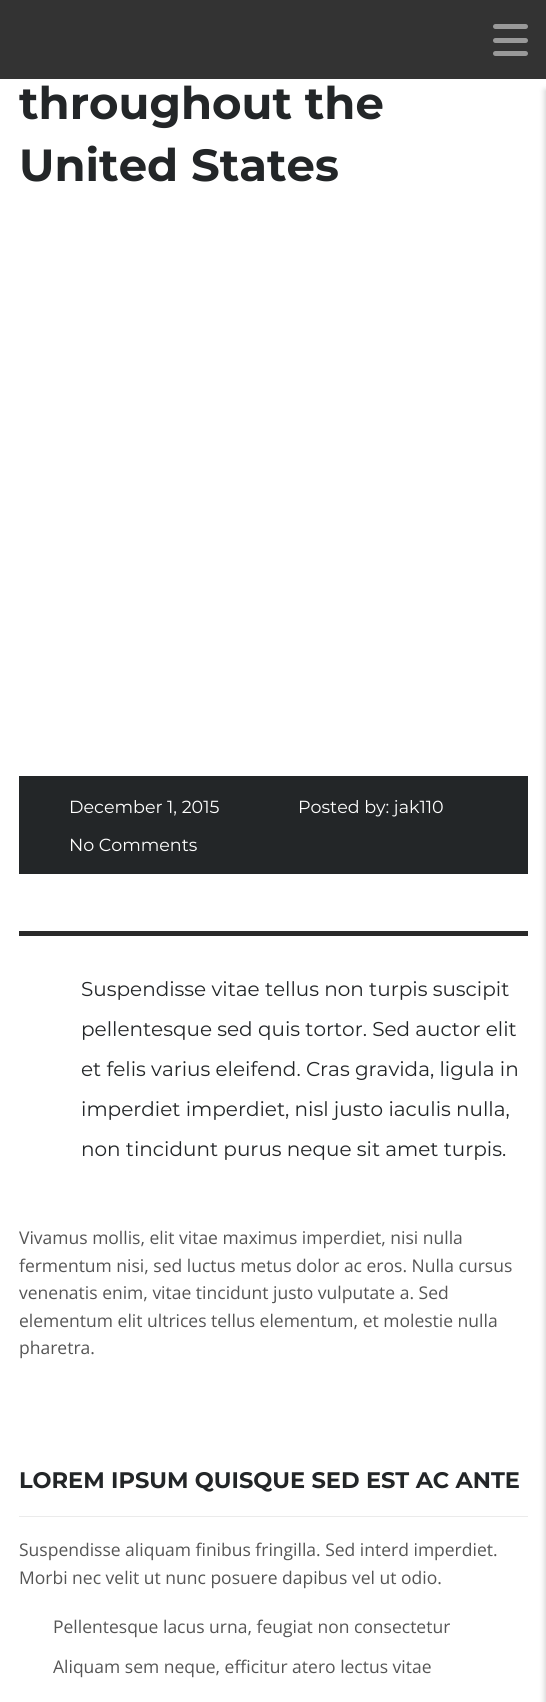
#include <cairo/cairo.h>
#include <math.h>
#include <stddef.h>


static void rounded_rect(cairo_t *cr, double x, double y, double w, double h, double r) {
  cairo_new_sub_path(cr);
  cairo_arc(cr, x + w - r, y + h - r, r, 0, M_PI / 2);
  cairo_arc(cr, x + r, y + h - r, r, M_PI / 2, M_PI);
  cairo_arc(cr, x + r, y + r, r, M_PI, 1.5 * M_PI);
  cairo_arc(cr, x + w - r, y + r, r, 1.5 * M_PI, 2 * M_PI);
  cairo_close_path(cr);
}

static void draw_shadow(cairo_t *cr, double x, double y, double w, double h, double r, double blur, double alpha) {
  cairo_push_group_with_content(cr, CAIRO_CONTENT_ALPHA);
  cairo_set_operator(cr, CAIRO_OPERATOR_SOURCE);
  for (int i = 15; i >= -15 && fmin(w, h) + blur * i / 3 > 0; i -= 2) {
    double e = blur * i / 6;
    cairo_set_source_rgba(cr, 0, 0, 0, alpha * erfc((i - 1) / 8.5) / 2);
    rounded_rect(cr, x - e, y - e, w + 2 * e, h + 2 * e, fmax(0, fmin(r + e + blur * .6, fmin(w, h) / 2 + e)));
    cairo_fill(cr);
  }
  cairo_pattern_t *soft = cairo_pop_group(cr);
  cairo_mask(cr, soft);
  cairo_pattern_destroy(soft);
}

static void draw(cairo_t *cr) {
  cairo_set_source_rgb(cr, 1, 1, 1);
  cairo_paint(cr);
  cairo_set_source_rgb(cr, 51 / 255.0, 51 / 255.0, 51 / 255.0);
  cairo_rectangle(cr, 0, 0, 546, 79);
  cairo_fill(cr);
  cairo_set_source_rgb(cr, 153 / 255.0, 153 / 255.0, 153 / 255.0);
  rounded_rect(cr, 493, 24, 35, 5, 2.5);
  cairo_fill(cr);
  rounded_rect(cr, 493, 38, 35, 5, 2.5);
  cairo_fill(cr);
  rounded_rect(cr, 493, 51, 35, 5, 2.5);
  cairo_fill(cr);
  cairo_set_source_rgb(cr, 35 / 255.0, 38 / 255.0, 40 / 255.0);
  cairo_rectangle(cr, 19, 776, 509, 98);
  cairo_fill(cr);
  cairo_set_source_rgb(cr, 42 / 255.0, 42 / 255.0, 42 / 255.0);
  cairo_rectangle(cr, 19, 931, 509, 5);
  cairo_fill(cr);
  cairo_set_source_rgb(cr, 235 / 255.0, 235 / 255.0, 235 / 255.0);
  cairo_rectangle(cr, 19, 1516, 509, 1);
  cairo_fill(cr);
  cairo_set_source_rgb(cr, 0, 0, 0);
  draw_shadow(cr, 545, 90, 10, 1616, 0, 3, 0.2);
  cairo_select_font_face(cr, "Montserrat", CAIRO_FONT_SLANT_NORMAL, CAIRO_FONT_WEIGHT_BOLD);
  cairo_set_font_size(cr, 45);
  cairo_set_source_rgb(cr, 35 / 255.0, 38 / 255.0, 40 / 255.0);
  cairo_move_to(cr, 19, 119);
  cairo_show_text(cr, "throughout the");
  cairo_move_to(cr, 19, 181);
  cairo_show_text(cr, "United States");
  cairo_select_font_face(cr, "Montserrat", CAIRO_FONT_SLANT_NORMAL, CAIRO_FONT_WEIGHT_NORMAL);
  cairo_set_font_size(cr, 17.5);
  cairo_set_source_rgb(cr, 1, 1, 1);
  cairo_move_to(cr, 69, 813);
  cairo_show_text(cr, "December 1, 2015");
  cairo_move_to(cr, 298, 813);
  cairo_show_text(cr, "Posted by: jak110");
  cairo_move_to(cr, 69, 851);
  cairo_show_text(cr, "No Comments");
  cairo_set_font_size(cr, 20);
  cairo_set_source_rgb(cr, 35 / 255.0, 38 / 255.0, 40 / 255.0);
  cairo_move_to(cr, 81, 996);
  cairo_show_text(cr, "Suspendisse vitae tellus non turpis suscipit");
  cairo_move_to(cr, 81, 1036);
  cairo_show_text(cr, "pellentesque sed quis tortor. Sed auctor elit");
  cairo_move_to(cr, 81, 1076);
  cairo_show_text(cr, "et felis varius eleifend. Cras gravida, ligula in");
  cairo_move_to(cr, 81, 1116);
  cairo_show_text(cr, "imperdiet imperdiet, nisl justo iaculis nulla,");
  cairo_move_to(cr, 81, 1156);
  cairo_show_text(cr, "non tincidunt purus neque sit amet turpis.");
  cairo_select_font_face(cr, "Open Sans", CAIRO_FONT_SLANT_NORMAL, CAIRO_FONT_WEIGHT_NORMAL);
  cairo_set_font_size(cr, 17.5);
  cairo_set_source_rgb(cr, 85 / 255.0, 85 / 255.0, 85 / 255.0);
  cairo_move_to(cr, 19, 1244);
  cairo_show_text(cr, "Vivamus mollis, elit vitae maximus imperdiet, nisi nulla");
  cairo_move_to(cr, 19, 1272);
  cairo_show_text(cr, "fermentum nisi, sed luctus metus dolor ac eros. Nulla cursus");
  cairo_move_to(cr, 19, 1299);
  cairo_show_text(cr, "venenatis enim, vitae tincidunt justo vulputate a. Sed");
  cairo_move_to(cr, 19, 1327);
  cairo_show_text(cr, "elementum elit ultrices tellus elementum, et molestie nulla");
  cairo_move_to(cr, 19, 1354);
  cairo_show_text(cr, "pharetra.");
  cairo_select_font_face(cr, "Montserrat", CAIRO_FONT_SLANT_NORMAL, CAIRO_FONT_WEIGHT_BOLD);
  cairo_set_font_size(cr, 22.5);
  cairo_set_source_rgb(cr, 35 / 255.0, 38 / 255.0, 40 / 255.0);
  cairo_move_to(cr, 19, 1488);
  cairo_show_text(cr, "LOREM IPSUM QUISQUE SED EST AC ANTE");
  cairo_select_font_face(cr, "Open Sans", CAIRO_FONT_SLANT_NORMAL, CAIRO_FONT_WEIGHT_NORMAL);
  cairo_set_font_size(cr, 17.5);
  cairo_set_source_rgb(cr, 85 / 255.0, 85 / 255.0, 85 / 255.0);
  cairo_move_to(cr, 19, 1556);
  cairo_show_text(cr, "Suspendisse aliquam finibus fringilla. Sed interd imperdiet.");
  cairo_move_to(cr, 19, 1584);
  cairo_show_text(cr, "Morbi nec velit ut nunc posuere dapibus vel ut odio.");
  cairo_move_to(cr, 53, 1633);
  cairo_show_text(cr, "Pellentesque lacus urna, feugiat non consectetur");
  cairo_move_to(cr, 53, 1673);
  cairo_show_text(cr, "Aliquam sem neque, efficitur atero lectus vitae");
}

int main(void) {
  cairo_surface_t *surface = cairo_image_surface_create(CAIRO_FORMAT_RGB24, 546, 1702);
  cairo_t *cr = cairo_create(surface);
  cairo_font_options_t *options = cairo_font_options_create();
  cairo_font_options_set_hint_metrics(options, CAIRO_HINT_METRICS_OFF);
  cairo_font_options_set_hint_style(options, CAIRO_HINT_STYLE_NONE);
  cairo_set_font_options(cr, options);
  cairo_set_miter_limit(cr, 4);
  draw(cr);
  cairo_surface_write_to_png(surface, "out.png");
  cairo_font_options_destroy(options);
  cairo_destroy(cr);
  cairo_surface_destroy(surface);
  return 0;
}
